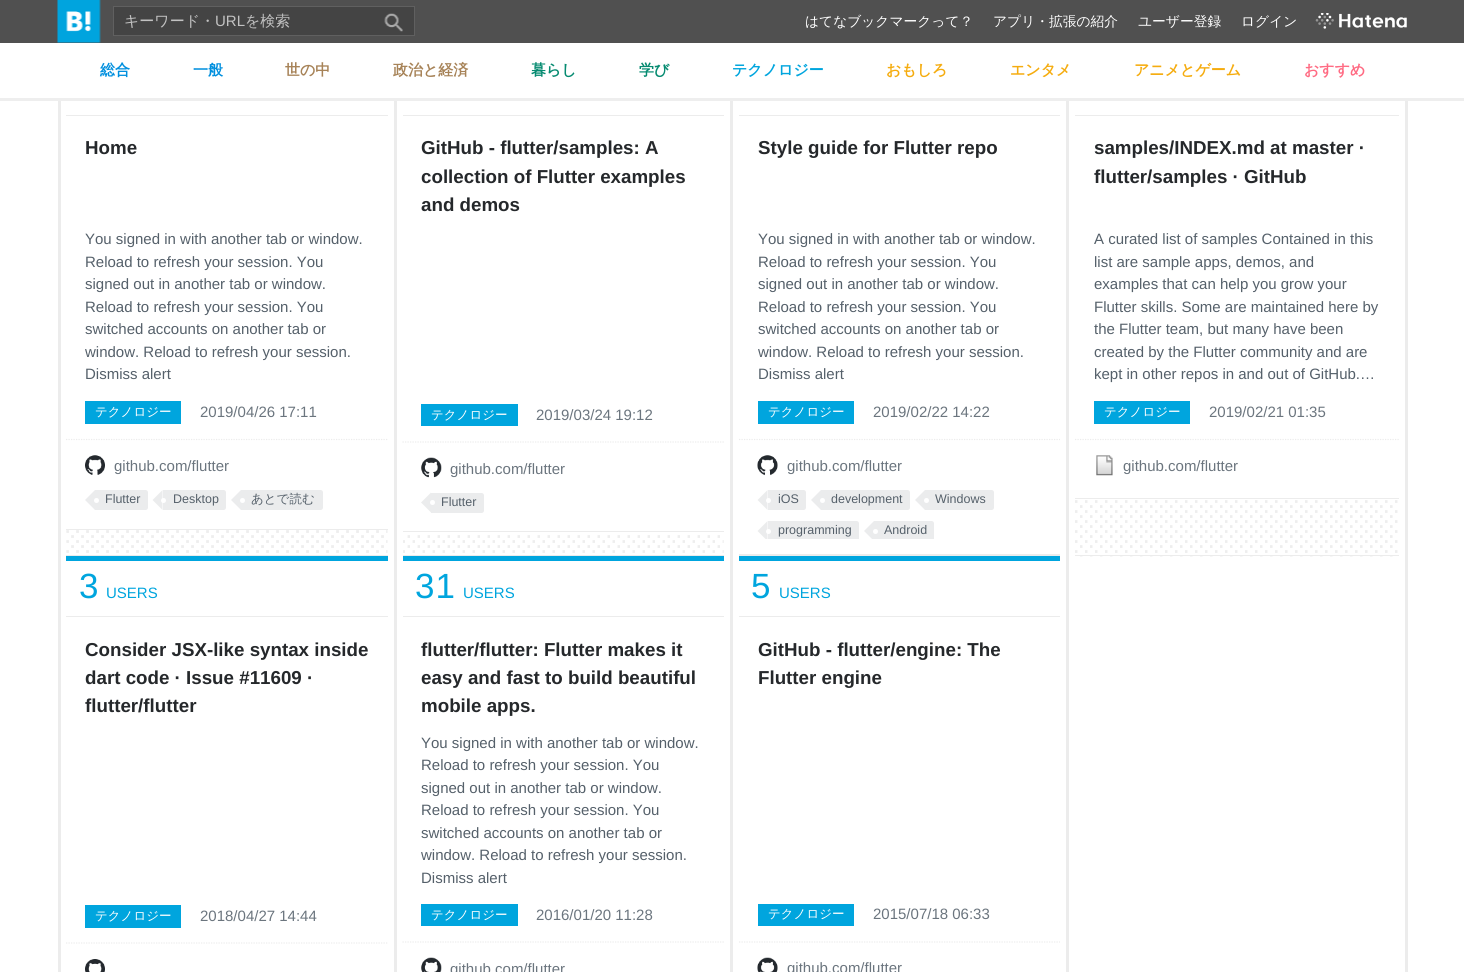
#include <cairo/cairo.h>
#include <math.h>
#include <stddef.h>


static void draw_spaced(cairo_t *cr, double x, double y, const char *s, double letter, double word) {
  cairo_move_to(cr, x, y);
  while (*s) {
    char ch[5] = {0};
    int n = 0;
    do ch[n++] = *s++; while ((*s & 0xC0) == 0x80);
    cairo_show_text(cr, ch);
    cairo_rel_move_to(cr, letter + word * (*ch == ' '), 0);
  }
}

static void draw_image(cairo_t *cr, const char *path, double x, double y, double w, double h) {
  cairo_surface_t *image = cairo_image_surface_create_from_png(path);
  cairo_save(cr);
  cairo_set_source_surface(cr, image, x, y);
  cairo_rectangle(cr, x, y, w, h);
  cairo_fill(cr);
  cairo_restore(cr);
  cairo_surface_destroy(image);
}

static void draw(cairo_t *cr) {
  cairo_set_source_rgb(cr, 1, 1, 1);
  cairo_paint(cr);
  cairo_set_source_rgb(cr, 80 / 255.0, 80 / 255.0, 80 / 255.0);
  cairo_rectangle(cr, 0, 0, 1464, 43);
  cairo_fill(cr);
  draw_image(cr, "images/1.png", 57, 0, 44, 43);
  cairo_set_source_rgb(cr, 68 / 255.0, 68 / 255.0, 68 / 255.0);
  cairo_rectangle(cr, 113.5, 6.5, 301, 29);
  cairo_fill_preserve(cr);
  cairo_set_source_rgb(cr, 96 / 255.0, 96 / 255.0, 96 / 255.0);
  cairo_set_line_width(cr, 1);
  cairo_stroke(cr);
  draw_image(cr, "images/2.png", 384, 13, 19, 19);
  draw_image(cr, "images/3.png", 1315, 13, 92, 16);
  cairo_set_source_rgb(cr, 238 / 255.0, 238 / 255.0, 238 / 255.0);
  cairo_rectangle(cr, 0, 98, 1464, 3);
  cairo_fill(cr);
  cairo_set_source_rgb(cr, 236 / 255.0, 236 / 255.0, 236 / 255.0);
  cairo_rectangle(cr, 1405, 101, 3, 871);
  cairo_fill(cr);
  cairo_rectangle(cr, 58, 101, 3, 871);
  cairo_fill(cr);
  cairo_rectangle(cr, 394, 101, 3, 871);
  cairo_fill(cr);
  draw_image(cr, "images/4.png", 66, 530, 322, 23);
  cairo_rectangle(cr, 66, 555, 322, 1);
  cairo_fill(cr);
  cairo_rectangle(cr, 66, 529, 322, 1);
  cairo_fill(cr);
  cairo_rectangle(cr, 66, 115, 322, 1);
  cairo_fill(cr);
  cairo_new_path(cr);
  cairo_move_to(cr, 66, 439.5);
  cairo_line_to(cr, 387.5, 439.5);
  cairo_set_line_width(cr, 1.2);
  cairo_set_dash(cr, (double[]){1.25, 1.25}, 2, 0);
  cairo_stroke(cr);
  cairo_set_source_rgb(cr, 0, 165 / 255.0, 222 / 255.0);
  cairo_rectangle(cr, 85, 401, 96, 23);
  cairo_fill(cr);
  draw_image(cr, "images/5.png", 85, 455, 20, 20);
  cairo_set_source_rgb(cr, 235 / 255.0, 236 / 255.0, 237 / 255.0);
  cairo_new_path(cr);
  cairo_move_to(cr, 95, 490);
  cairo_line_to(cr, 145.5, 490);
  cairo_curve_to(cr, 147, 490, 148, 491, 148, 492.5);
  cairo_line_to(cr, 148, 507.5);
  cairo_curve_to(cr, 148, 509, 147, 510, 145.5, 510);
  cairo_line_to(cr, 95, 510);
  cairo_close_path(cr);
  cairo_fill(cr);
  cairo_new_path(cr);
  cairo_move_to(cr, 95, 490);
  cairo_line_to(cr, 95, 510);
  cairo_line_to(cr, 85, 500);
  cairo_close_path(cr);
  cairo_fill(cr);
  cairo_set_source_rgb(cr, 1, 1, 1);
  cairo_arc(cr, 96.5, 500.5, 2.5, 0, 2 * M_PI);
  cairo_fill(cr);
  cairo_set_source_rgb(cr, 235 / 255.0, 236 / 255.0, 237 / 255.0);
  cairo_new_path(cr);
  cairo_move_to(cr, 163, 490);
  cairo_line_to(cr, 223.5, 490);
  cairo_curve_to(cr, 225, 490, 226, 491, 226, 492.5);
  cairo_line_to(cr, 226, 507.5);
  cairo_curve_to(cr, 226, 509, 225, 510, 223.5, 510);
  cairo_line_to(cr, 163, 510);
  cairo_close_path(cr);
  cairo_fill(cr);
  cairo_new_path(cr);
  cairo_move_to(cr, 162.5, 490);
  cairo_line_to(cr, 162.5, 510);
  cairo_line_to(cr, 152.5, 500);
  cairo_close_path(cr);
  cairo_fill(cr);
  cairo_set_source_rgb(cr, 1, 1, 1);
  cairo_arc(cr, 163.5, 500.5, 2.5, 0, 2 * M_PI);
  cairo_fill(cr);
  cairo_set_source_rgb(cr, 235 / 255.0, 236 / 255.0, 237 / 255.0);
  cairo_new_path(cr);
  cairo_move_to(cr, 241, 490);
  cairo_line_to(cr, 320.5, 490);
  cairo_curve_to(cr, 322, 490, 323, 491, 323, 492.5);
  cairo_line_to(cr, 323, 507.5);
  cairo_curve_to(cr, 323, 509, 322, 510, 320.5, 510);
  cairo_line_to(cr, 241, 510);
  cairo_close_path(cr);
  cairo_fill(cr);
  cairo_new_path(cr);
  cairo_move_to(cr, 241, 490);
  cairo_line_to(cr, 241, 510);
  cairo_line_to(cr, 231, 500);
  cairo_close_path(cr);
  cairo_fill(cr);
  cairo_set_source_rgb(cr, 1, 1, 1);
  cairo_arc(cr, 242.5, 500.5, 2.5, 0, 2 * M_PI);
  cairo_fill(cr);
  cairo_set_source_rgb(cr, 236 / 255.0, 236 / 255.0, 236 / 255.0);
  cairo_rectangle(cr, 730, 101, 3, 871);
  cairo_fill(cr);
  draw_image(cr, "images/6.png", 403, 535, 321, 18);
  cairo_rectangle(cr, 403, 555, 321, 1);
  cairo_fill(cr);
  cairo_rectangle(cr, 403, 531, 321, 1);
  cairo_fill(cr);
  cairo_rectangle(cr, 403, 115, 321, 1);
  cairo_fill(cr);
  cairo_new_path(cr);
  cairo_move_to(cr, 402.5, 442);
  cairo_line_to(cr, 724, 442);
  cairo_stroke(cr);
  cairo_set_source_rgb(cr, 0, 165 / 255.0, 222 / 255.0);
  cairo_rectangle(cr, 421, 404, 97, 22);
  cairo_fill(cr);
  draw_image(cr, "images/7.png", 421, 457, 21, 21);
  cairo_set_source_rgb(cr, 235 / 255.0, 236 / 255.0, 237 / 255.0);
  cairo_new_path(cr);
  cairo_move_to(cr, 431, 493);
  cairo_line_to(cr, 481.5, 493);
  cairo_curve_to(cr, 483, 493, 484, 494, 484, 495.5);
  cairo_line_to(cr, 484, 510.5);
  cairo_curve_to(cr, 484, 512, 483, 513, 481.5, 513);
  cairo_line_to(cr, 431, 513);
  cairo_close_path(cr);
  cairo_fill(cr);
  cairo_new_path(cr);
  cairo_move_to(cr, 431, 492.5);
  cairo_line_to(cr, 431, 512.5);
  cairo_line_to(cr, 421, 502.5);
  cairo_close_path(cr);
  cairo_fill(cr);
  cairo_set_source_rgb(cr, 1, 1, 1);
  cairo_arc(cr, 432.5, 502.5, 2.5, 0, 2 * M_PI);
  cairo_fill(cr);
  cairo_set_source_rgb(cr, 236 / 255.0, 236 / 255.0, 236 / 255.0);
  cairo_rectangle(cr, 1066, 101, 3, 871);
  cairo_fill(cr);
  cairo_rectangle(cr, 739, 554, 321, 2);
  cairo_fill(cr);
  cairo_rectangle(cr, 739, 115, 321, 1);
  cairo_fill(cr);
  cairo_new_path(cr);
  cairo_move_to(cr, 739, 439.5);
  cairo_line_to(cr, 1060, 439.5);
  cairo_stroke(cr);
  cairo_set_source_rgb(cr, 0, 165 / 255.0, 222 / 255.0);
  cairo_rectangle(cr, 758, 401, 96, 23);
  cairo_fill(cr);
  draw_image(cr, "images/8.png", 757, 455, 21, 21);
  cairo_set_source_rgb(cr, 235 / 255.0, 236 / 255.0, 237 / 255.0);
  cairo_new_path(cr);
  cairo_move_to(cr, 768, 490);
  cairo_line_to(cr, 803.5, 490);
  cairo_curve_to(cr, 805, 490, 806, 491, 806, 492.5);
  cairo_line_to(cr, 806, 507.5);
  cairo_curve_to(cr, 806, 509, 805, 510, 803.5, 510);
  cairo_line_to(cr, 768, 510);
  cairo_close_path(cr);
  cairo_fill(cr);
  cairo_new_path(cr);
  cairo_move_to(cr, 767.5, 490);
  cairo_line_to(cr, 767.5, 510);
  cairo_line_to(cr, 757.5, 500);
  cairo_close_path(cr);
  cairo_fill(cr);
  cairo_set_source_rgb(cr, 1, 1, 1);
  cairo_arc(cr, 768.5, 500.5, 2.5, 0, 2 * M_PI);
  cairo_fill(cr);
  cairo_set_source_rgb(cr, 235 / 255.0, 236 / 255.0, 237 / 255.0);
  cairo_new_path(cr);
  cairo_move_to(cr, 821, 490);
  cairo_line_to(cr, 907.5, 490);
  cairo_curve_to(cr, 909, 490, 910, 491, 910, 492.5);
  cairo_line_to(cr, 910, 507.5);
  cairo_curve_to(cr, 910, 509, 909, 510, 907.5, 510);
  cairo_line_to(cr, 821, 510);
  cairo_close_path(cr);
  cairo_fill(cr);
  cairo_new_path(cr);
  cairo_move_to(cr, 821, 490);
  cairo_line_to(cr, 821, 510);
  cairo_line_to(cr, 811, 500);
  cairo_close_path(cr);
  cairo_fill(cr);
  cairo_set_source_rgb(cr, 1, 1, 1);
  cairo_arc(cr, 822.5, 500.5, 2.5, 0, 2 * M_PI);
  cairo_fill(cr);
  cairo_set_source_rgb(cr, 235 / 255.0, 236 / 255.0, 237 / 255.0);
  cairo_new_path(cr);
  cairo_move_to(cr, 925, 490);
  cairo_line_to(cr, 991.5, 490);
  cairo_curve_to(cr, 993, 490, 994, 491, 994, 492.5);
  cairo_line_to(cr, 994, 507.5);
  cairo_curve_to(cr, 994, 509, 993, 510, 991.5, 510);
  cairo_line_to(cr, 925, 510);
  cairo_close_path(cr);
  cairo_fill(cr);
  cairo_new_path(cr);
  cairo_move_to(cr, 925, 490);
  cairo_line_to(cr, 925, 510);
  cairo_line_to(cr, 915, 500);
  cairo_close_path(cr);
  cairo_fill(cr);
  cairo_set_source_rgb(cr, 1, 1, 1);
  cairo_arc(cr, 926.5, 500.5, 2.5, 0, 2 * M_PI);
  cairo_fill(cr);
  cairo_save(cr);
  cairo_rectangle(cr, 739, 478, 321, 61);
  cairo_clip(cr);
  cairo_set_source_rgb(cr, 235 / 255.0, 236 / 255.0, 237 / 255.0);
  cairo_new_path(cr);
  cairo_move_to(cr, 768, 521);
  cairo_line_to(cr, 856.5, 521);
  cairo_curve_to(cr, 858, 521, 859, 522, 859, 523.5);
  cairo_line_to(cr, 859, 538.5);
  cairo_curve_to(cr, 859, 540, 858, 541, 856.5, 541);
  cairo_line_to(cr, 768, 541);
  cairo_close_path(cr);
  cairo_fill(cr);
  cairo_new_path(cr);
  cairo_move_to(cr, 767.5, 521);
  cairo_line_to(cr, 767.5, 541);
  cairo_line_to(cr, 757.5, 531);
  cairo_close_path(cr);
  cairo_fill(cr);
  cairo_restore(cr);
  cairo_arc(cr, 768.5, 531.5, 2.5, 0, 2 * M_PI);
  cairo_fill(cr);
  cairo_save(cr);
  cairo_rectangle(cr, 739, 478, 321, 61);
  cairo_clip(cr);
  cairo_set_source_rgb(cr, 235 / 255.0, 236 / 255.0, 237 / 255.0);
  cairo_new_path(cr);
  cairo_move_to(cr, 874, 521);
  cairo_line_to(cr, 931.5, 521);
  cairo_curve_to(cr, 933, 521, 934, 522, 934, 523.5);
  cairo_line_to(cr, 934, 538.5);
  cairo_curve_to(cr, 934, 540, 933, 541, 931.5, 541);
  cairo_line_to(cr, 874, 541);
  cairo_close_path(cr);
  cairo_fill(cr);
  cairo_new_path(cr);
  cairo_move_to(cr, 874, 521);
  cairo_line_to(cr, 874, 541);
  cairo_line_to(cr, 864, 531);
  cairo_close_path(cr);
  cairo_fill(cr);
  cairo_restore(cr);
  cairo_arc(cr, 875.5, 531.5, 2.5, 0, 2 * M_PI);
  cairo_fill(cr);
  draw_image(cr, "images/9.png", 1075, 500, 323, 57);
  cairo_set_source_rgb(cr, 236 / 255.0, 236 / 255.0, 236 / 255.0);
  cairo_rectangle(cr, 1075, 555, 324, 1);
  cairo_fill(cr);
  cairo_rectangle(cr, 1075, 498, 324, 1);
  cairo_fill(cr);
  cairo_rectangle(cr, 1075, 115, 324, 1);
  cairo_fill(cr);
  cairo_new_path(cr);
  cairo_move_to(cr, 1075, 439.5);
  cairo_line_to(cr, 1399, 439.5);
  cairo_stroke(cr);
  cairo_set_source_rgb(cr, 0, 165 / 255.0, 222 / 255.0);
  cairo_rectangle(cr, 1094, 401, 96, 23);
  cairo_fill(cr);
  draw_image(cr, "images/10.png", 1096, 455, 17, 21);
  cairo_rectangle(cr, 66, 556, 322, 5);
  cairo_fill(cr);
  cairo_set_source_rgb(cr, 236 / 255.0, 236 / 255.0, 236 / 255.0);
  cairo_rectangle(cr, 66, 616, 322, 1);
  cairo_fill(cr);
  cairo_new_path(cr);
  cairo_move_to(cr, 66, 943);
  cairo_line_to(cr, 387.5, 943);
  cairo_stroke(cr);
  cairo_set_source_rgb(cr, 0, 165 / 255.0, 222 / 255.0);
  cairo_rectangle(cr, 85, 905, 96, 23);
  cairo_fill(cr);
  draw_image(cr, "images/11.png", 85, 959, 20, 13);
  cairo_rectangle(cr, 403, 556, 321, 5);
  cairo_fill(cr);
  cairo_set_source_rgb(cr, 236 / 255.0, 236 / 255.0, 236 / 255.0);
  cairo_rectangle(cr, 403, 616, 321, 1);
  cairo_fill(cr);
  cairo_new_path(cr);
  cairo_move_to(cr, 402.5, 942);
  cairo_line_to(cr, 724, 942);
  cairo_stroke(cr);
  cairo_set_source_rgb(cr, 0, 165 / 255.0, 222 / 255.0);
  cairo_rectangle(cr, 421, 904, 97, 22);
  cairo_fill(cr);
  draw_image(cr, "images/12.png", 421, 957, 21, 15);
  cairo_rectangle(cr, 739, 556, 321, 5);
  cairo_fill(cr);
  cairo_set_source_rgb(cr, 236 / 255.0, 236 / 255.0, 236 / 255.0);
  cairo_rectangle(cr, 739, 616, 321, 1);
  cairo_fill(cr);
  cairo_new_path(cr);
  cairo_move_to(cr, 739, 942);
  cairo_line_to(cr, 1060, 942);
  cairo_stroke(cr);
  cairo_set_source_rgb(cr, 0, 165 / 255.0, 222 / 255.0);
  cairo_rectangle(cr, 758, 904, 96, 22);
  cairo_fill(cr);
  draw_image(cr, "images/13.png", 757, 957, 21, 15);
  cairo_select_font_face(cr, "WenQuanYi Zen Hei Medium", CAIRO_FONT_SLANT_NORMAL, CAIRO_FONT_WEIGHT_NORMAL);
  cairo_set_font_size(cr, 15);
  cairo_set_source_rgb(cr, 194 / 255.0, 194 / 255.0, 194 / 255.0);
  cairo_move_to(cr, 124, 26);
  cairo_show_text(cr, "キーワード・");
  cairo_select_font_face(cr, "Liberation Sans", CAIRO_FONT_SLANT_NORMAL, CAIRO_FONT_WEIGHT_NORMAL);
  cairo_move_to(cr, 215, 26);
  cairo_show_text(cr, "URL");
  cairo_select_font_face(cr, "WenQuanYi Zen Hei Medium", CAIRO_FONT_SLANT_NORMAL, CAIRO_FONT_WEIGHT_NORMAL);
  cairo_move_to(cr, 245, 26);
  cairo_show_text(cr, "を検索");
  cairo_set_font_size(cr, 13.75);
  cairo_set_source_rgb(cr, 1, 1, 1);
  cairo_move_to(cr, 805, 26);
  cairo_show_text(cr, "はてなブックマークって？");
  cairo_move_to(cr, 993, 26);
  cairo_show_text(cr, "アプリ・拡張の紹介");
  cairo_move_to(cr, 1138, 26);
  cairo_show_text(cr, "ユーザー登録");
  cairo_move_to(cr, 1241, 26);
  cairo_show_text(cr, "ログイン");
  cairo_select_font_face(cr, "WenQuanYi Zen Hei", CAIRO_FONT_SLANT_NORMAL, CAIRO_FONT_WEIGHT_BOLD);
  cairo_set_font_size(cr, 15);
  cairo_set_source_rgb(cr, 0, 143 / 255.0, 222 / 255.0);
  cairo_move_to(cr, 100, 75);
  cairo_show_text(cr, "総合");
  cairo_move_to(cr, 193, 75);
  cairo_show_text(cr, "一般");
  cairo_set_source_rgb(cr, 167 / 255.0, 131 / 255.0, 88 / 255.0);
  cairo_move_to(cr, 285, 75);
  cairo_show_text(cr, "世の中");
  cairo_move_to(cr, 393, 75);
  cairo_show_text(cr, "政治と経済");
  cairo_set_source_rgb(cr, 6 / 255.0, 139 / 255.0, 113 / 255.0);
  cairo_move_to(cr, 531, 75);
  cairo_show_text(cr, "暮らし");
  cairo_move_to(cr, 639, 75);
  cairo_show_text(cr, "学び");
  cairo_set_source_rgb(cr, 0, 165 / 255.0, 222 / 255.0);
  cairo_move_to(cr, 732, 75);
  cairo_show_text(cr, "テクノロジー");
  cairo_set_source_rgb(cr, 245 / 255.0, 172 / 255.0, 15 / 255.0);
  cairo_move_to(cr, 886, 75);
  cairo_show_text(cr, "おもしろ");
  cairo_move_to(cr, 1010, 75);
  cairo_show_text(cr, "エンタメ");
  cairo_move_to(cr, 1134, 75);
  cairo_show_text(cr, "アニメとゲーム");
  cairo_set_source_rgb(cr, 1, 107 / 255.0, 131 / 255.0);
  cairo_move_to(cr, 1304, 75);
  cairo_show_text(cr, "おすすめ");
  cairo_select_font_face(cr, "Liberation Sans", CAIRO_FONT_SLANT_NORMAL, CAIRO_FONT_WEIGHT_BOLD);
  cairo_set_font_size(cr, 18.75);
  cairo_set_source_rgb(cr, 37 / 255.0, 40 / 255.0, 43 / 255.0);
  cairo_move_to(cr, 85, 154);
  cairo_show_text(cr, "Home");
  cairo_select_font_face(cr, "Liberation Sans", CAIRO_FONT_SLANT_NORMAL, CAIRO_FONT_WEIGHT_NORMAL);
  cairo_set_font_size(cr, 15);
  cairo_set_source_rgb(cr, 85 / 255.0, 96 / 255.0, 106 / 255.0);
  cairo_move_to(cr, 85, 244);
  cairo_show_text(cr, "You signed in with another tab or window.");
  cairo_move_to(cr, 85, 267);
  cairo_show_text(cr, "Reload to refresh your session. You");
  cairo_move_to(cr, 85, 289);
  cairo_show_text(cr, "signed out in another tab or window.");
  cairo_move_to(cr, 85, 312);
  cairo_show_text(cr, "Reload to refresh your session. You");
  cairo_move_to(cr, 85, 334);
  cairo_show_text(cr, "switched accounts on another tab or");
  cairo_move_to(cr, 85, 357);
  cairo_show_text(cr, "window. Reload to refresh your session.");
  cairo_move_to(cr, 85, 379);
  cairo_show_text(cr, "Dismiss alert");
  cairo_select_font_face(cr, "WenQuanYi Zen Hei Medium", CAIRO_FONT_SLANT_NORMAL, CAIRO_FONT_WEIGHT_NORMAL);
  cairo_set_font_size(cr, 12.5);
  cairo_set_source_rgb(cr, 1, 1, 1);
  cairo_move_to(cr, 95, 416);
  cairo_show_text(cr, "テクノロジー");
  cairo_select_font_face(cr, "Liberation Sans", CAIRO_FONT_SLANT_NORMAL, CAIRO_FONT_WEIGHT_NORMAL);
  cairo_set_font_size(cr, 15);
  cairo_set_source_rgb(cr, 107 / 255.0, 117 / 255.0, 126 / 255.0);
  cairo_move_to(cr, 200, 417);
  cairo_show_text(cr, "2019/04/26 17:11");
  cairo_move_to(cr, 114, 471);
  cairo_show_text(cr, "github.com/flutter");
  cairo_set_font_size(cr, 12.5);
  cairo_set_source_rgb(cr, 85 / 255.0, 96 / 255.0, 106 / 255.0);
  cairo_move_to(cr, 105, 503);
  cairo_show_text(cr, "Flutter");
  cairo_move_to(cr, 173, 503);
  cairo_show_text(cr, "Desktop");
  cairo_select_font_face(cr, "WenQuanYi Zen Hei Medium", CAIRO_FONT_SLANT_NORMAL, CAIRO_FONT_WEIGHT_NORMAL);
  cairo_move_to(cr, 251, 503);
  cairo_show_text(cr, "あとで読む");
  cairo_select_font_face(cr, "Liberation Sans", CAIRO_FONT_SLANT_NORMAL, CAIRO_FONT_WEIGHT_BOLD);
  cairo_set_font_size(cr, 18.75);
  cairo_set_source_rgb(cr, 37 / 255.0, 40 / 255.0, 43 / 255.0);
  cairo_move_to(cr, 421, 154);
  cairo_show_text(cr, "GitHub - flutter/samples: A");
  cairo_move_to(cr, 421, 183);
  cairo_show_text(cr, "collection of Flutter examples");
  cairo_move_to(cr, 421, 211);
  cairo_show_text(cr, "and demos");
  cairo_select_font_face(cr, "WenQuanYi Zen Hei Medium", CAIRO_FONT_SLANT_NORMAL, CAIRO_FONT_WEIGHT_NORMAL);
  cairo_set_font_size(cr, 12.5);
  cairo_set_source_rgb(cr, 1, 1, 1);
  cairo_move_to(cr, 431, 419);
  cairo_show_text(cr, "テクノロジー");
  cairo_select_font_face(cr, "Liberation Sans", CAIRO_FONT_SLANT_NORMAL, CAIRO_FONT_WEIGHT_NORMAL);
  cairo_set_font_size(cr, 15);
  cairo_set_source_rgb(cr, 107 / 255.0, 117 / 255.0, 126 / 255.0);
  cairo_move_to(cr, 536, 420);
  cairo_show_text(cr, "2019/03/24 19:12");
  cairo_move_to(cr, 450, 474);
  cairo_show_text(cr, "github.com/flutter");
  cairo_set_font_size(cr, 12.5);
  cairo_set_source_rgb(cr, 85 / 255.0, 96 / 255.0, 106 / 255.0);
  cairo_move_to(cr, 441, 506);
  cairo_show_text(cr, "Flutter");
  cairo_select_font_face(cr, "Liberation Sans", CAIRO_FONT_SLANT_NORMAL, CAIRO_FONT_WEIGHT_BOLD);
  cairo_set_font_size(cr, 18.75);
  cairo_set_source_rgb(cr, 37 / 255.0, 40 / 255.0, 43 / 255.0);
  cairo_move_to(cr, 758, 154);
  cairo_show_text(cr, "Style guide for Flutter repo");
  cairo_select_font_face(cr, "Liberation Sans", CAIRO_FONT_SLANT_NORMAL, CAIRO_FONT_WEIGHT_NORMAL);
  cairo_set_font_size(cr, 15);
  cairo_set_source_rgb(cr, 85 / 255.0, 96 / 255.0, 106 / 255.0);
  cairo_move_to(cr, 758, 244);
  cairo_show_text(cr, "You signed in with another tab or window.");
  cairo_move_to(cr, 758, 267);
  cairo_show_text(cr, "Reload to refresh your session. You");
  cairo_move_to(cr, 758, 289);
  cairo_show_text(cr, "signed out in another tab or window.");
  cairo_move_to(cr, 758, 312);
  cairo_show_text(cr, "Reload to refresh your session. You");
  cairo_move_to(cr, 758, 334);
  cairo_show_text(cr, "switched accounts on another tab or");
  cairo_move_to(cr, 758, 357);
  cairo_show_text(cr, "window. Reload to refresh your session.");
  cairo_move_to(cr, 758, 379);
  cairo_show_text(cr, "Dismiss alert");
  cairo_select_font_face(cr, "WenQuanYi Zen Hei Medium", CAIRO_FONT_SLANT_NORMAL, CAIRO_FONT_WEIGHT_NORMAL);
  cairo_set_font_size(cr, 12.5);
  cairo_set_source_rgb(cr, 1, 1, 1);
  cairo_move_to(cr, 768, 416);
  cairo_show_text(cr, "テクノロジー");
  cairo_select_font_face(cr, "Liberation Sans", CAIRO_FONT_SLANT_NORMAL, CAIRO_FONT_WEIGHT_NORMAL);
  cairo_set_font_size(cr, 15);
  cairo_set_source_rgb(cr, 107 / 255.0, 117 / 255.0, 126 / 255.0);
  cairo_move_to(cr, 873, 417);
  cairo_show_text(cr, "2019/02/22 14:22");
  cairo_move_to(cr, 787, 471);
  cairo_show_text(cr, "github.com/flutter");
  cairo_set_font_size(cr, 12.5);
  cairo_set_source_rgb(cr, 85 / 255.0, 96 / 255.0, 106 / 255.0);
  cairo_move_to(cr, 778, 503);
  cairo_show_text(cr, "iOS");
  cairo_move_to(cr, 831, 503);
  cairo_show_text(cr, "development");
  cairo_move_to(cr, 935, 503);
  cairo_show_text(cr, "Windows");
  cairo_move_to(cr, 778, 534);
  cairo_show_text(cr, "programming");
  cairo_move_to(cr, 884, 534);
  cairo_show_text(cr, "Android");
  cairo_select_font_face(cr, "Liberation Sans", CAIRO_FONT_SLANT_NORMAL, CAIRO_FONT_WEIGHT_BOLD);
  cairo_set_font_size(cr, 18.75);
  cairo_set_source_rgb(cr, 37 / 255.0, 40 / 255.0, 43 / 255.0);
  cairo_move_to(cr, 1094, 154);
  cairo_show_text(cr, "samples/INDEX.md at master ·");
  cairo_move_to(cr, 1094, 183);
  cairo_show_text(cr, "flutter/samples · GitHub");
  cairo_select_font_face(cr, "Liberation Sans", CAIRO_FONT_SLANT_NORMAL, CAIRO_FONT_WEIGHT_NORMAL);
  cairo_set_font_size(cr, 15);
  cairo_set_source_rgb(cr, 85 / 255.0, 96 / 255.0, 106 / 255.0);
  cairo_move_to(cr, 1094, 244);
  cairo_show_text(cr, "A curated list of samples Contained in this");
  cairo_move_to(cr, 1094, 267);
  cairo_show_text(cr, "list are sample apps, demos, and");
  cairo_move_to(cr, 1094, 289);
  cairo_show_text(cr, "examples that can help you grow your");
  cairo_move_to(cr, 1094, 312);
  cairo_show_text(cr, "Flutter skills. Some are maintained here by");
  cairo_move_to(cr, 1094, 334);
  cairo_show_text(cr, "the Flutter team, but many have been");
  cairo_move_to(cr, 1094, 357);
  cairo_show_text(cr, "created by the Flutter community and are");
  cairo_move_to(cr, 1094, 379);
  cairo_show_text(cr, "kept in other repos in and out of GitHub.…");
  cairo_select_font_face(cr, "WenQuanYi Zen Hei Medium", CAIRO_FONT_SLANT_NORMAL, CAIRO_FONT_WEIGHT_NORMAL);
  cairo_set_font_size(cr, 12.5);
  cairo_set_source_rgb(cr, 1, 1, 1);
  cairo_move_to(cr, 1104, 416);
  cairo_show_text(cr, "テクノロジー");
  cairo_select_font_face(cr, "Liberation Sans", CAIRO_FONT_SLANT_NORMAL, CAIRO_FONT_WEIGHT_NORMAL);
  cairo_set_font_size(cr, 15);
  cairo_set_source_rgb(cr, 107 / 255.0, 117 / 255.0, 126 / 255.0);
  cairo_move_to(cr, 1209, 417);
  cairo_show_text(cr, "2019/02/21 01:35");
  cairo_move_to(cr, 1123, 471);
  cairo_show_text(cr, "github.com/flutter");
  cairo_set_font_size(cr, 35);
  cairo_set_source_rgb(cr, 0, 165 / 255.0, 222 / 255.0);
  draw_spaced(cr, 79, 598, "3", 1, 0);
  cairo_set_font_size(cr, 15);
  cairo_move_to(cr, 106, 598);
  cairo_show_text(cr, "USERS");
  cairo_select_font_face(cr, "Liberation Sans", CAIRO_FONT_SLANT_NORMAL, CAIRO_FONT_WEIGHT_BOLD);
  cairo_set_font_size(cr, 18.75);
  cairo_set_source_rgb(cr, 37 / 255.0, 40 / 255.0, 43 / 255.0);
  cairo_move_to(cr, 85, 656);
  cairo_show_text(cr, "Consider JSX-like syntax inside");
  cairo_move_to(cr, 85, 684);
  cairo_show_text(cr, "dart code · Issue #11609 ·");
  cairo_move_to(cr, 85, 712);
  cairo_show_text(cr, "flutter/flutter");
  cairo_select_font_face(cr, "WenQuanYi Zen Hei Medium", CAIRO_FONT_SLANT_NORMAL, CAIRO_FONT_WEIGHT_NORMAL);
  cairo_set_font_size(cr, 12.5);
  cairo_set_source_rgb(cr, 1, 1, 1);
  cairo_move_to(cr, 95, 920);
  cairo_show_text(cr, "テクノロジー");
  cairo_select_font_face(cr, "Liberation Sans", CAIRO_FONT_SLANT_NORMAL, CAIRO_FONT_WEIGHT_NORMAL);
  cairo_set_font_size(cr, 15);
  cairo_set_source_rgb(cr, 107 / 255.0, 117 / 255.0, 126 / 255.0);
  cairo_move_to(cr, 200, 921);
  cairo_show_text(cr, "2018/04/27 14:44");
  cairo_set_font_size(cr, 35);
  cairo_set_source_rgb(cr, 0, 165 / 255.0, 222 / 255.0);
  draw_spaced(cr, 415, 598, "31", 1, 0);
  cairo_set_font_size(cr, 15);
  cairo_move_to(cr, 463, 598);
  cairo_show_text(cr, "USERS");
  cairo_select_font_face(cr, "Liberation Sans", CAIRO_FONT_SLANT_NORMAL, CAIRO_FONT_WEIGHT_BOLD);
  cairo_set_font_size(cr, 18.75);
  cairo_set_source_rgb(cr, 37 / 255.0, 40 / 255.0, 43 / 255.0);
  cairo_move_to(cr, 421, 656);
  cairo_show_text(cr, "flutter/flutter: Flutter makes it");
  cairo_move_to(cr, 421, 684);
  cairo_show_text(cr, "easy and fast to build beautiful");
  cairo_move_to(cr, 421, 712);
  cairo_show_text(cr, "mobile apps.");
  cairo_select_font_face(cr, "Liberation Sans", CAIRO_FONT_SLANT_NORMAL, CAIRO_FONT_WEIGHT_NORMAL);
  cairo_set_font_size(cr, 15);
  cairo_set_source_rgb(cr, 85 / 255.0, 96 / 255.0, 106 / 255.0);
  cairo_move_to(cr, 421, 748);
  cairo_show_text(cr, "You signed in with another tab or window.");
  cairo_move_to(cr, 421, 770);
  cairo_show_text(cr, "Reload to refresh your session. You");
  cairo_move_to(cr, 421, 793);
  cairo_show_text(cr, "signed out in another tab or window.");
  cairo_move_to(cr, 421, 815);
  cairo_show_text(cr, "Reload to refresh your session. You");
  cairo_move_to(cr, 421, 838);
  cairo_show_text(cr, "switched accounts on another tab or");
  cairo_move_to(cr, 421, 860);
  cairo_show_text(cr, "window. Reload to refresh your session.");
  cairo_move_to(cr, 421, 883);
  cairo_show_text(cr, "Dismiss alert");
  cairo_select_font_face(cr, "WenQuanYi Zen Hei Medium", CAIRO_FONT_SLANT_NORMAL, CAIRO_FONT_WEIGHT_NORMAL);
  cairo_set_font_size(cr, 12.5);
  cairo_set_source_rgb(cr, 1, 1, 1);
  cairo_move_to(cr, 431, 919);
  cairo_show_text(cr, "テクノロジー");
  cairo_select_font_face(cr, "Liberation Sans", CAIRO_FONT_SLANT_NORMAL, CAIRO_FONT_WEIGHT_NORMAL);
  cairo_set_font_size(cr, 15);
  cairo_set_source_rgb(cr, 107 / 255.0, 117 / 255.0, 126 / 255.0);
  cairo_move_to(cr, 536, 920);
  cairo_show_text(cr, "2016/01/20 11:28");
  cairo_move_to(cr, 450, 974);
  cairo_show_text(cr, "github.com/flutter");
  cairo_set_font_size(cr, 35);
  cairo_set_source_rgb(cr, 0, 165 / 255.0, 222 / 255.0);
  draw_spaced(cr, 751, 598, "5", 1, 0);
  cairo_set_font_size(cr, 15);
  cairo_move_to(cr, 779, 598);
  cairo_show_text(cr, "USERS");
  cairo_select_font_face(cr, "Liberation Sans", CAIRO_FONT_SLANT_NORMAL, CAIRO_FONT_WEIGHT_BOLD);
  cairo_set_font_size(cr, 18.75);
  cairo_set_source_rgb(cr, 37 / 255.0, 40 / 255.0, 43 / 255.0);
  cairo_move_to(cr, 758, 656);
  cairo_show_text(cr, "GitHub - flutter/engine: The");
  cairo_move_to(cr, 758, 684);
  cairo_show_text(cr, "Flutter engine");
  cairo_select_font_face(cr, "WenQuanYi Zen Hei Medium", CAIRO_FONT_SLANT_NORMAL, CAIRO_FONT_WEIGHT_NORMAL);
  cairo_set_font_size(cr, 12.5);
  cairo_set_source_rgb(cr, 1, 1, 1);
  cairo_move_to(cr, 768, 918);
  cairo_show_text(cr, "テクノロジー");
  cairo_select_font_face(cr, "Liberation Sans", CAIRO_FONT_SLANT_NORMAL, CAIRO_FONT_WEIGHT_NORMAL);
  cairo_set_font_size(cr, 15);
  cairo_set_source_rgb(cr, 107 / 255.0, 117 / 255.0, 126 / 255.0);
  cairo_move_to(cr, 873, 919);
  cairo_show_text(cr, "2015/07/18 06:33");
  cairo_move_to(cr, 787, 973);
  cairo_show_text(cr, "github.com/flutter");
}

int main(void) {
  cairo_surface_t *surface = cairo_image_surface_create(CAIRO_FORMAT_RGB24, 1464, 972);
  cairo_t *cr = cairo_create(surface);
  cairo_font_options_t *options = cairo_font_options_create();
  cairo_font_options_set_hint_metrics(options, CAIRO_HINT_METRICS_OFF);
  cairo_font_options_set_hint_style(options, CAIRO_HINT_STYLE_NONE);
  cairo_set_font_options(cr, options);
  cairo_set_miter_limit(cr, 4);
  draw(cr);
  cairo_surface_write_to_png(surface, "out.png");
  cairo_font_options_destroy(options);
  cairo_destroy(cr);
  cairo_surface_destroy(surface);
  return 0;
}
